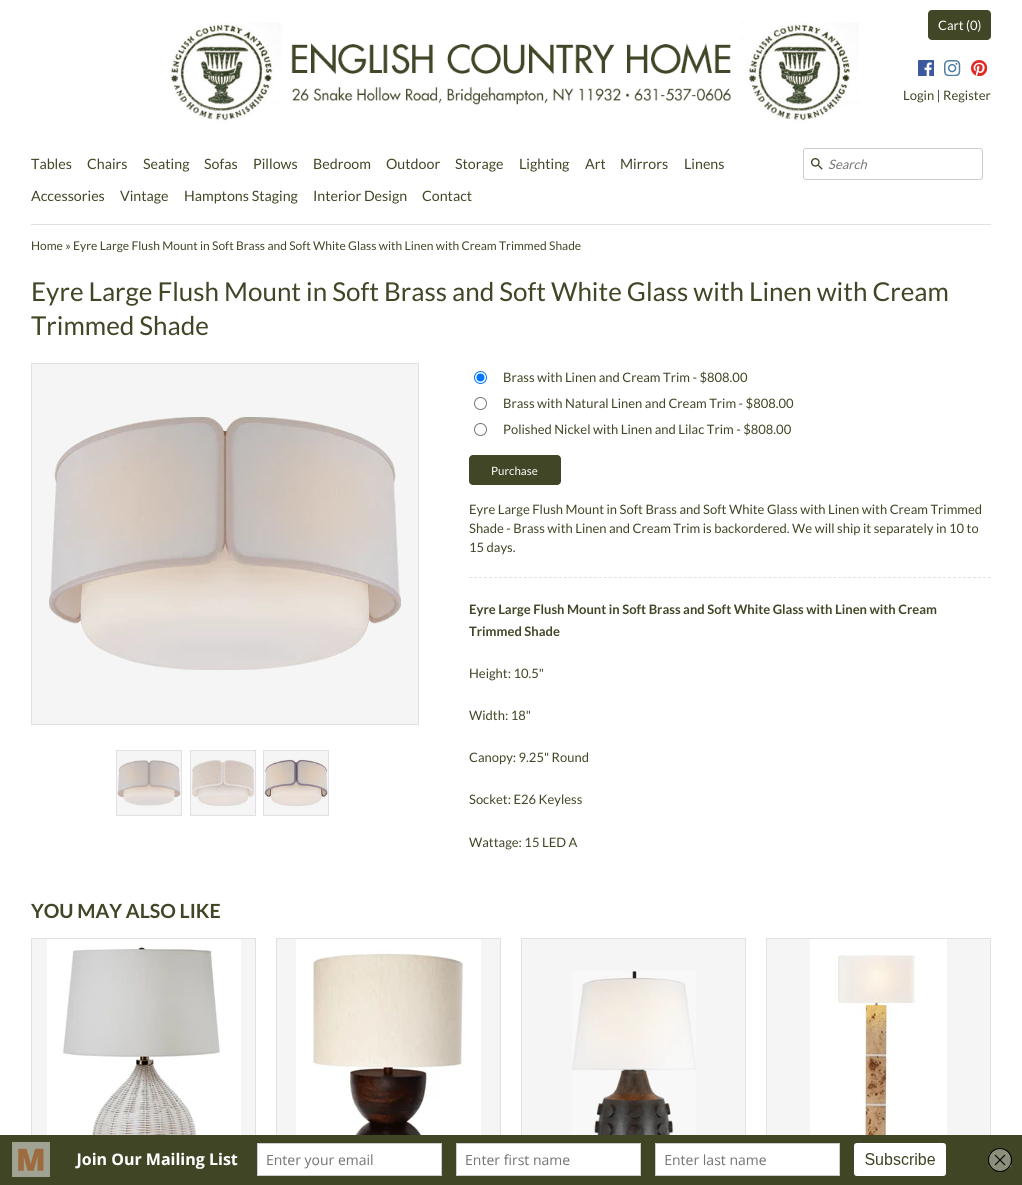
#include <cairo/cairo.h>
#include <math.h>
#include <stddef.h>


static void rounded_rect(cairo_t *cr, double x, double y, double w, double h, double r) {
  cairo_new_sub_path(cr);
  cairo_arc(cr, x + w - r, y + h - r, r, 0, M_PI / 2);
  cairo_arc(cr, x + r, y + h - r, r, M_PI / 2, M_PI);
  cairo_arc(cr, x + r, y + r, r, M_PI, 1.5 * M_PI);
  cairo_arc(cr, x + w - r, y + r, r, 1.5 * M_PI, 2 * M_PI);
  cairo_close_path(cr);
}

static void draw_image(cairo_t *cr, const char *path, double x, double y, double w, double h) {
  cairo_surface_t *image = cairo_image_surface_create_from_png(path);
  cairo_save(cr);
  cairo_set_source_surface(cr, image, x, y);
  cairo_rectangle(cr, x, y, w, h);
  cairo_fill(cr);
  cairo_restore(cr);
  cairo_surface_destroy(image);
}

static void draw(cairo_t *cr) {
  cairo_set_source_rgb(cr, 1, 1, 1);
  cairo_paint(cr);
  draw_image(cr, "images/1.png", 170, 22, 689, 101);
  cairo_set_source_rgb(cr, 65 / 255.0, 70 / 255.0, 38 / 255.0);
  rounded_rect(cr, 928, 10, 63, 30, 4);
  cairo_fill(cr);
  draw_image(cr, "images/2.png", 918, 60, 16, 16);
  draw_image(cr, "images/3.png", 944, 60, 17, 16);
  draw_image(cr, "images/4.png", 971, 60, 16, 16);
  cairo_set_source_rgb(cr, 228 / 255.0, 223 / 255.0, 226 / 255.0);
  cairo_rectangle(cr, 31, 224, 960, 1);
  cairo_fill(cr);
  rounded_rect(cr, 803.5, 148.5, 179, 31, 2.5);
  cairo_set_source_rgb(cr, 204 / 255.0, 204 / 255.0, 204 / 255.0);
  cairo_set_line_width(cr, 1);
  cairo_stroke(cr);
  draw_image(cr, "images/5.png", 811, 158, 12, 12);
  cairo_set_source_rgb(cr, 245 / 255.0, 245 / 255.0, 245 / 255.0);
  cairo_rectangle(cr, 31.5, 363.5, 387, 361);
  cairo_fill_preserve(cr);
  cairo_set_source_rgb(cr, 228 / 255.0, 223 / 255.0, 226 / 255.0);
  cairo_stroke(cr);
  draw_image(cr, "images/6.png", 49, 417, 352, 253);
  cairo_set_source_rgb(cr, 245 / 255.0, 245 / 255.0, 245 / 255.0);
  cairo_rectangle(cr, 116.5, 750.5, 65, 65);
  cairo_fill_preserve(cr);
  cairo_set_source_rgb(cr, 228 / 255.0, 223 / 255.0, 226 / 255.0);
  cairo_stroke(cr);
  draw_image(cr, "images/7.png", 117, 760, 64, 46);
  cairo_set_source_rgb(cr, 245 / 255.0, 245 / 255.0, 245 / 255.0);
  cairo_rectangle(cr, 190.5, 750.5, 65, 65);
  cairo_fill_preserve(cr);
  cairo_set_source_rgb(cr, 228 / 255.0, 223 / 255.0, 226 / 255.0);
  cairo_stroke(cr);
  draw_image(cr, "images/8.png", 191, 760, 64, 46);
  cairo_set_source_rgb(cr, 245 / 255.0, 245 / 255.0, 245 / 255.0);
  cairo_rectangle(cr, 263.5, 750.5, 65, 65);
  cairo_fill_preserve(cr);
  cairo_set_source_rgb(cr, 228 / 255.0, 223 / 255.0, 226 / 255.0);
  cairo_stroke(cr);
  draw_image(cr, "images/9.png", 264, 759, 64, 48);
  cairo_arc(cr, 480.5, 377.5, 6, 0, 2 * M_PI);
  cairo_set_source_rgb(cr, 0, 117 / 255.0, 1);
  cairo_stroke(cr);
  cairo_arc(cr, 480.5, 377.5, 4, 0, 2 * M_PI);
  cairo_fill(cr);
  cairo_arc(cr, 480.5, 403.5, 6, 0, 2 * M_PI);
  cairo_set_source_rgb(cr, 118 / 255.0, 118 / 255.0, 118 / 255.0);
  cairo_stroke(cr);
  cairo_arc(cr, 480.5, 429.5, 6, 0, 2 * M_PI);
  cairo_stroke(cr);
  cairo_set_source_rgb(cr, 65 / 255.0, 70 / 255.0, 38 / 255.0);
  rounded_rect(cr, 469, 455, 92, 30, 4);
  cairo_fill(cr);
  cairo_new_path(cr);
  cairo_move_to(cr, 469, 577.5);
  cairo_line_to(cr, 991, 577.5);
  cairo_set_source_rgb(cr, 228 / 255.0, 223 / 255.0, 226 / 255.0);
  cairo_set_dash(cr, (double[]){3, 1.99}, 2, 0);
  cairo_stroke(cr);
  cairo_set_source_rgb(cr, 245 / 255.0, 245 / 255.0, 245 / 255.0);
  cairo_rectangle(cr, 32, 939, 223, 196);
  cairo_fill(cr);
  cairo_rectangle(cr, 31.5, 938.5, 224, 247);
  cairo_set_source_rgb(cr, 228 / 255.0, 223 / 255.0, 226 / 255.0);
  cairo_set_dash(cr, NULL, 0, 0);
  cairo_stroke(cr);
  draw_image(cr, "images/10.png", 47, 939, 194, 196);
  cairo_set_source_rgb(cr, 245 / 255.0, 245 / 255.0, 245 / 255.0);
  cairo_rectangle(cr, 277, 939, 223, 196);
  cairo_fill(cr);
  cairo_rectangle(cr, 276.5, 938.5, 224, 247);
  cairo_set_source_rgb(cr, 228 / 255.0, 223 / 255.0, 226 / 255.0);
  cairo_stroke(cr);
  draw_image(cr, "images/11.png", 296, 939, 185, 196);
  cairo_set_source_rgb(cr, 245 / 255.0, 245 / 255.0, 245 / 255.0);
  cairo_rectangle(cr, 522, 939, 223, 196);
  cairo_fill(cr);
  cairo_rectangle(cr, 521.5, 938.5, 224, 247);
  cairo_set_source_rgb(cr, 228 / 255.0, 223 / 255.0, 226 / 255.0);
  cairo_stroke(cr);
  draw_image(cr, "images/12.png", 572, 971, 124, 164);
  cairo_set_source_rgb(cr, 245 / 255.0, 245 / 255.0, 245 / 255.0);
  cairo_rectangle(cr, 767, 939, 223, 196);
  cairo_fill(cr);
  cairo_rectangle(cr, 766.5, 938.5, 224, 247);
  cairo_set_source_rgb(cr, 228 / 255.0, 223 / 255.0, 226 / 255.0);
  cairo_stroke(cr);
  draw_image(cr, "images/13.png", 810, 939, 137, 196);
  draw_image(cr, "images/14.png", 0, 1135, 1022, 50);
  cairo_select_font_face(cr, "Lato", CAIRO_FONT_SLANT_NORMAL, CAIRO_FONT_WEIGHT_NORMAL);
  cairo_set_font_size(cr, 13);
  cairo_set_source_rgb(cr, 1, 1, 1);
  cairo_move_to(cr, 938, 30);
  cairo_show_text(cr, "Cart (0)");
  cairo_set_source_rgb(cr, 65 / 255.0, 70 / 255.0, 38 / 255.0);
  cairo_move_to(cr, 903, 100);
  cairo_show_text(cr, "Login | Register");
  cairo_set_font_size(cr, 14.25);
  cairo_move_to(cr, 31, 169);
  cairo_show_text(cr, "Tables");
  cairo_move_to(cr, 87, 169);
  cairo_show_text(cr, "Chairs");
  cairo_move_to(cr, 143, 169);
  cairo_show_text(cr, "Seating");
  cairo_move_to(cr, 204, 169);
  cairo_show_text(cr, "Sofas");
  cairo_move_to(cr, 253, 169);
  cairo_show_text(cr, "Pillows");
  cairo_move_to(cr, 313, 169);
  cairo_show_text(cr, "Bedroom");
  cairo_move_to(cr, 386, 169);
  cairo_show_text(cr, "Outdoor");
  cairo_move_to(cr, 455, 169);
  cairo_show_text(cr, "Storage");
  cairo_move_to(cr, 519, 169);
  cairo_show_text(cr, "Lighting");
  cairo_move_to(cr, 585, 169);
  cairo_show_text(cr, "Art");
  cairo_move_to(cr, 620, 169);
  cairo_show_text(cr, "Mirrors");
  cairo_move_to(cr, 684, 169);
  cairo_show_text(cr, "Linens");
  cairo_move_to(cr, 31, 201);
  cairo_show_text(cr, "Accessories");
  cairo_move_to(cr, 120, 201);
  cairo_show_text(cr, "Vintage");
  cairo_move_to(cr, 184, 201);
  cairo_show_text(cr, "Hamptons Staging");
  cairo_move_to(cr, 313, 201);
  cairo_show_text(cr, "Interior Design");
  cairo_move_to(cr, 422, 201);
  cairo_show_text(cr, "Contact");
  cairo_select_font_face(cr, "Lato", CAIRO_FONT_SLANT_ITALIC, CAIRO_FONT_WEIGHT_NORMAL);
  cairo_set_font_size(cr, 13);
  cairo_set_source_rgb(cr, 117 / 255.0, 117 / 255.0, 117 / 255.0);
  cairo_move_to(cr, 828, 169);
  cairo_show_text(cr, "Search");
  cairo_select_font_face(cr, "Lato", CAIRO_FONT_SLANT_NORMAL, CAIRO_FONT_WEIGHT_NORMAL);
  cairo_set_font_size(cr, 12);
  cairo_set_source_rgb(cr, 65 / 255.0, 70 / 255.0, 38 / 255.0);
  cairo_move_to(cr, 31, 250);
  cairo_show_text(cr, "Home » Eyre Large Flush Mount in Soft Brass and Soft White Glass with Linen with Cream Trimmed Shade");
  cairo_set_font_size(cr, 26);
  cairo_move_to(cr, 31, 301);
  cairo_show_text(cr, "Eyre Large Flush Mount in Soft Brass and Soft White Glass with Linen with Cream");
  cairo_move_to(cr, 31, 335);
  cairo_show_text(cr, "Trimmed Shade");
  cairo_set_font_size(cr, 13);
  cairo_move_to(cr, 503, 382);
  cairo_show_text(cr, "Brass with Linen and Cream Trim - $808.00");
  cairo_move_to(cr, 503, 408);
  cairo_show_text(cr, "Brass with Natural Linen and Cream Trim - $808.00");
  cairo_move_to(cr, 503, 434);
  cairo_show_text(cr, "Polished Nickel with Linen and Lilac Trim - $808.00");
  cairo_set_font_size(cr, 11.5);
  cairo_set_source_rgb(cr, 1, 1, 1);
  cairo_move_to(cr, 491, 475);
  cairo_show_text(cr, "Purchase");
  cairo_set_font_size(cr, 13);
  cairo_set_source_rgb(cr, 65 / 255.0, 70 / 255.0, 38 / 255.0);
  cairo_move_to(cr, 469, 514);
  cairo_show_text(cr, "Eyre Large Flush Mount in Soft Brass and Soft White Glass with Linen with Cream Trimmed");
  cairo_move_to(cr, 469, 533);
  cairo_show_text(cr, "Shade - Brass with Linen and Cream Trim is backordered. We will ship it separately in 10 to");
  cairo_move_to(cr, 469, 552);
  cairo_show_text(cr, "15 days.");
  cairo_select_font_face(cr, "Lato", CAIRO_FONT_SLANT_NORMAL, CAIRO_FONT_WEIGHT_BOLD);
  cairo_move_to(cr, 469, 614);
  cairo_show_text(cr, "Eyre Large Flush Mount in Soft Brass and Soft White Glass with Linen with Cream");
  cairo_move_to(cr, 469, 636);
  cairo_show_text(cr, "Trimmed Shade");
  cairo_select_font_face(cr, "Lato", CAIRO_FONT_SLANT_NORMAL, CAIRO_FONT_WEIGHT_NORMAL);
  cairo_move_to(cr, 469, 678);
  cairo_show_text(cr, "Height: 10.5\"");
  cairo_move_to(cr, 469, 720);
  cairo_show_text(cr, "Width: 18\"");
  cairo_move_to(cr, 469, 762);
  cairo_show_text(cr, "Canopy: 9.25\" Round");
  cairo_move_to(cr, 469, 804);
  cairo_show_text(cr, "Socket: E26 Keyless");
  cairo_move_to(cr, 469, 847);
  cairo_show_text(cr, "Wattage: 15 LED A");
  cairo_select_font_face(cr, "Lato", CAIRO_FONT_SLANT_NORMAL, CAIRO_FONT_WEIGHT_BOLD);
  cairo_set_font_size(cr, 19.5);
  cairo_move_to(cr, 31, 918);
  cairo_show_text(cr, "YOU MAY ALSO LIKE");
}

int main(void) {
  cairo_surface_t *surface = cairo_image_surface_create(CAIRO_FORMAT_RGB24, 1022, 1185);
  cairo_t *cr = cairo_create(surface);
  cairo_font_options_t *options = cairo_font_options_create();
  cairo_font_options_set_hint_metrics(options, CAIRO_HINT_METRICS_OFF);
  cairo_font_options_set_hint_style(options, CAIRO_HINT_STYLE_NONE);
  cairo_set_font_options(cr, options);
  cairo_set_miter_limit(cr, 4);
  draw(cr);
  cairo_surface_write_to_png(surface, "out.png");
  cairo_font_options_destroy(options);
  cairo_destroy(cr);
  cairo_surface_destroy(surface);
  return 0;
}
